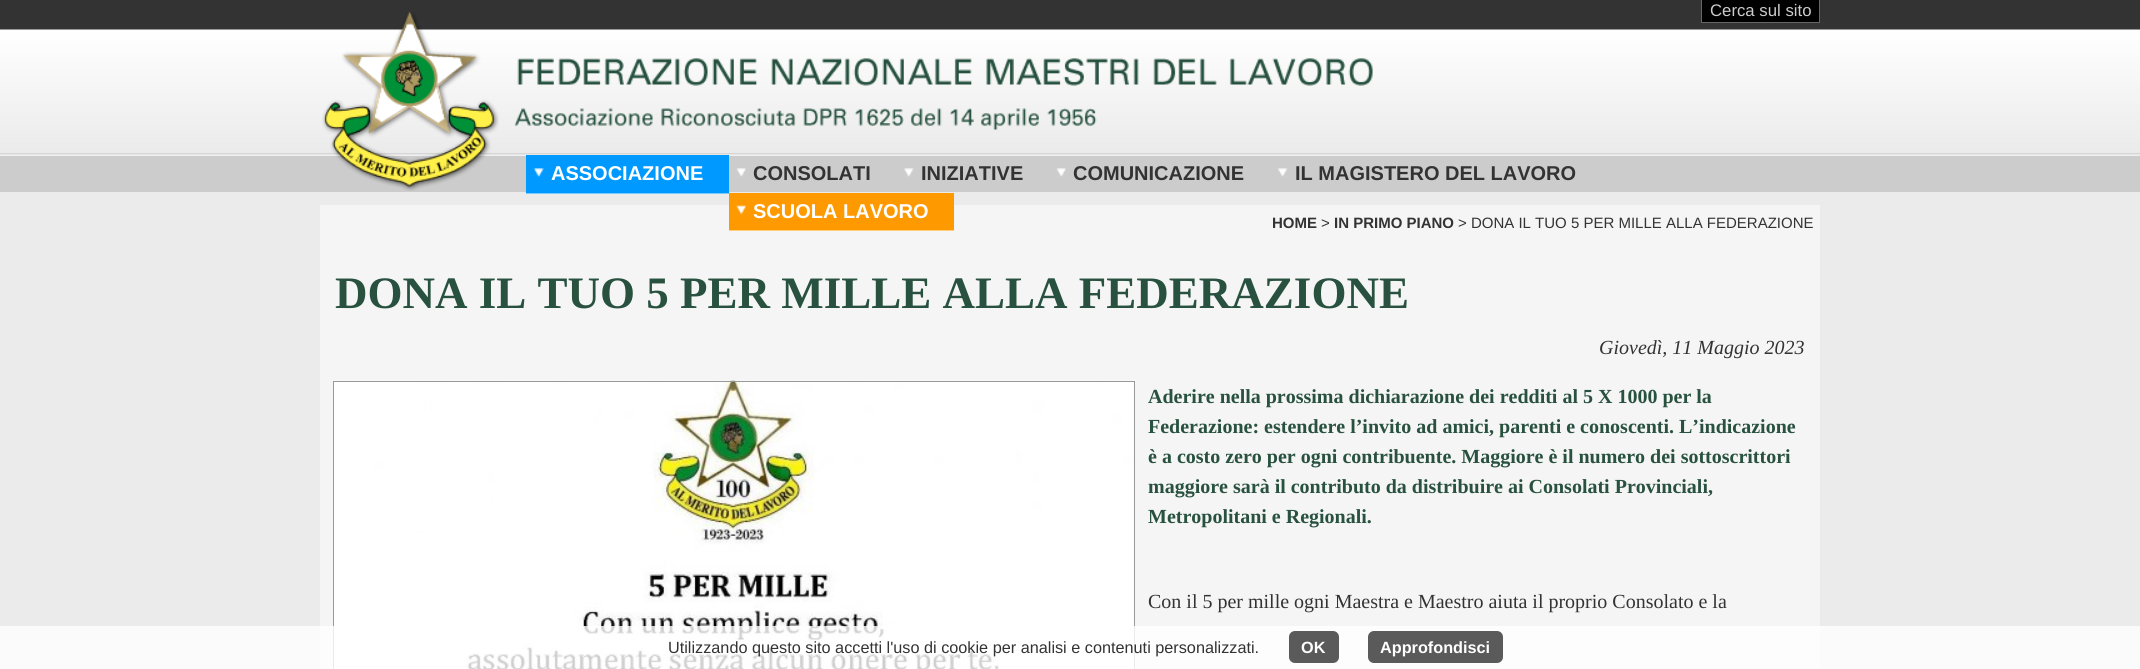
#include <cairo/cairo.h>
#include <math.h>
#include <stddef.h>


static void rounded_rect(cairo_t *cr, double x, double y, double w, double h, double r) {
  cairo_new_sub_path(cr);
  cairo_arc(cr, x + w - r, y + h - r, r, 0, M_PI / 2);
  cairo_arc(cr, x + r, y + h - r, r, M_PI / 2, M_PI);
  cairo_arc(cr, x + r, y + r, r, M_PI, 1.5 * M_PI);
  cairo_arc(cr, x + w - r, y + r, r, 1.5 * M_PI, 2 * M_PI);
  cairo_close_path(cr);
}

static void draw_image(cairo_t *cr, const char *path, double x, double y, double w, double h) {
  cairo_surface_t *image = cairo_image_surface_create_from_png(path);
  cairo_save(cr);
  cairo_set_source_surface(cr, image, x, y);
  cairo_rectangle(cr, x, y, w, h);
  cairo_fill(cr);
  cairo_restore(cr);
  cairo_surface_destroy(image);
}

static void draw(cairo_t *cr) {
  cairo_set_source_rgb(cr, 235 / 255.0, 235 / 255.0, 235 / 255.0);
  cairo_paint(cr);
  draw_image(cr, "images/1.png", 0, 0, 2140, 192);
  draw_image(cr, "images/2.png", 322, 12, 1051, 179);
  cairo_set_source_rgb(cr, 0, 0, 0);
  cairo_rectangle(cr, 1701.5, -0.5, 118, 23);
  cairo_fill_preserve(cr);
  cairo_set_source_rgb(cr, 102 / 255.0, 102 / 255.0, 102 / 255.0);
  cairo_set_line_width(cr, 1);
  cairo_stroke(cr);
  cairo_set_source_rgb(cr, 0, 153 / 255.0, 1);
  cairo_rectangle(cr, 526, 155, 203, 38);
  cairo_fill(cr);
  cairo_set_source_rgb(cr, 122 / 255.0, 203 / 255.0, 1);
  cairo_rectangle(cr, 526, 193, 203, 1);
  cairo_fill(cr);
  draw_image(cr, "images/3.png", 533, 168, 11, 9);
  draw_image(cr, "images/4.png", 736, 168, 10, 9);
  draw_image(cr, "images/5.png", 904, 168, 10, 9);
  draw_image(cr, "images/4.png", 1056, 168, 10, 9);
  draw_image(cr, "images/6.png", 1277, 168, 11, 9);
  cairo_set_source_rgb(cr, 245 / 255.0, 245 / 255.0, 245 / 255.0);
  cairo_rectangle(cr, 320, 205, 1500, 464);
  cairo_fill(cr);
  cairo_set_source_rgb(cr, 1, 153 / 255.0, 0);
  cairo_rectangle(cr, 729, 193, 225, 37);
  cairo_fill(cr);
  cairo_set_source_rgb(cr, 1, 205 / 255.0, 123 / 255.0);
  cairo_rectangle(cr, 729, 230, 225, 1);
  cairo_fill(cr);
  draw_image(cr, "images/7.png", 736, 205, 11, 10);
  draw_image(cr, "images/8.png", 333, 380, 801, 289);
  cairo_rectangle(cr, 333.5, 381.5, 801, 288);
  cairo_set_source_rgb(cr, 153 / 255.0, 153 / 255.0, 153 / 255.0);
  cairo_stroke(cr);
  cairo_set_source_rgba(cr, 1, 1, 1, 0.8);
  cairo_rectangle(cr, 0, 626, 2140, 43);
  cairo_fill(cr);
  cairo_set_source_rgb(cr, 90 / 255.0, 90 / 255.0, 90 / 255.0);
  rounded_rect(cr, 1289, 631, 50, 32, 6);
  cairo_fill(cr);
  rounded_rect(cr, 1368, 631, 135, 32, 6);
  cairo_fill(cr);
  cairo_select_font_face(cr, "Liberation Sans", CAIRO_FONT_SLANT_NORMAL, CAIRO_FONT_WEIGHT_NORMAL);
  cairo_set_font_size(cr, 16.75);
  cairo_set_source_rgb(cr, 204 / 255.0, 204 / 255.0, 204 / 255.0);
  cairo_move_to(cr, 1710, 16);
  cairo_show_text(cr, "Cerca sul sito");
  cairo_select_font_face(cr, "Liberation Sans", CAIRO_FONT_SLANT_NORMAL, CAIRO_FONT_WEIGHT_BOLD);
  cairo_set_font_size(cr, 20);
  cairo_set_source_rgb(cr, 1, 1, 1);
  cairo_move_to(cr, 551, 180);
  cairo_show_text(cr, "ASSOCIAZIONE");
  cairo_set_source_rgb(cr, 51 / 255.0, 51 / 255.0, 51 / 255.0);
  cairo_move_to(cr, 753, 180);
  cairo_show_text(cr, "CONSOLATI");
  cairo_move_to(cr, 921, 180);
  cairo_show_text(cr, "INIZIATIVE");
  cairo_move_to(cr, 1073, 180);
  cairo_show_text(cr, "COMUNICAZIONE");
  cairo_move_to(cr, 1295, 180);
  cairo_show_text(cr, "IL MAGISTERO DEL LAVORO");
  cairo_set_source_rgb(cr, 1, 1, 1);
  cairo_move_to(cr, 753, 218);
  cairo_show_text(cr, "SCUOLA LAVORO");
  cairo_set_font_size(cr, 15);
  cairo_set_source_rgb(cr, 51 / 255.0, 51 / 255.0, 51 / 255.0);
  cairo_move_to(cr, 1272, 228);
  cairo_show_text(cr, "HOME");
  cairo_select_font_face(cr, "Liberation Sans", CAIRO_FONT_SLANT_NORMAL, CAIRO_FONT_WEIGHT_NORMAL);
  cairo_move_to(cr, 1321, 228);
  cairo_show_text(cr, ">");
  cairo_select_font_face(cr, "Liberation Sans", CAIRO_FONT_SLANT_NORMAL, CAIRO_FONT_WEIGHT_BOLD);
  cairo_move_to(cr, 1334, 228);
  cairo_show_text(cr, "IN PRIMO PIANO");
  cairo_select_font_face(cr, "Liberation Sans", CAIRO_FONT_SLANT_NORMAL, CAIRO_FONT_WEIGHT_NORMAL);
  cairo_move_to(cr, 1458, 228);
  cairo_show_text(cr, "> DONA IL TUO 5 PER MILLE ALLA FEDERAZIONE");
  cairo_select_font_face(cr, "Liberation Serif", CAIRO_FONT_SLANT_NORMAL, CAIRO_FONT_WEIGHT_BOLD);
  cairo_set_font_size(cr, 45);
  cairo_set_source_rgb(cr, 40 / 255.0, 81 / 255.0, 63 / 255.0);
  cairo_move_to(cr, 335, 308);
  cairo_show_text(cr, "DONA IL TUO 5 PER MILLE ALLA FEDERAZIONE");
  cairo_select_font_face(cr, "Liberation Serif", CAIRO_FONT_SLANT_ITALIC, CAIRO_FONT_WEIGHT_NORMAL);
  cairo_set_font_size(cr, 20);
  cairo_set_source_rgb(cr, 51 / 255.0, 51 / 255.0, 51 / 255.0);
  cairo_move_to(cr, 1599, 354);
  cairo_show_text(cr, "Giovedì, 11 Maggio 2023");
  cairo_select_font_face(cr, "Liberation Serif", CAIRO_FONT_SLANT_NORMAL, CAIRO_FONT_WEIGHT_BOLD);
  cairo_set_source_rgb(cr, 40 / 255.0, 81 / 255.0, 63 / 255.0);
  cairo_move_to(cr, 1148, 403);
  cairo_show_text(cr, "Aderire nella prossima dichiarazione dei redditi al 5 X 1000 per la");
  cairo_move_to(cr, 1148, 433);
  cairo_show_text(cr, "Federazione: estendere l’invito ad amici, parenti e conoscenti. L’indicazione");
  cairo_move_to(cr, 1148, 463);
  cairo_show_text(cr, "è a costo zero per ogni contribuente. Maggiore è il numero dei sottoscrittori");
  cairo_move_to(cr, 1148, 493);
  cairo_show_text(cr, "maggiore sarà il contributo da distribuire ai Consolati Provinciali,");
  cairo_move_to(cr, 1148, 523);
  cairo_show_text(cr, "Metropolitani e Regionali.");
  cairo_select_font_face(cr, "Liberation Serif", CAIRO_FONT_SLANT_NORMAL, CAIRO_FONT_WEIGHT_NORMAL);
  cairo_set_source_rgb(cr, 51 / 255.0, 51 / 255.0, 51 / 255.0);
  cairo_move_to(cr, 1148, 608);
  cairo_show_text(cr, "Con il 5 per mille ogni Maestra e Maestro aiuta il proprio Consolato e la");
  cairo_select_font_face(cr, "Liberation Sans", CAIRO_FONT_SLANT_NORMAL, CAIRO_FONT_WEIGHT_NORMAL);
  cairo_set_font_size(cr, 16.25);
  cairo_move_to(cr, 668, 653);
  cairo_show_text(cr, "Utilizzando questo sito accetti l'uso di cookie per analisi e contenuti personalizzati.");
  cairo_select_font_face(cr, "Liberation Sans", CAIRO_FONT_SLANT_NORMAL, CAIRO_FONT_WEIGHT_BOLD);
  cairo_set_source_rgb(cr, 1, 1, 1);
  cairo_move_to(cr, 1301, 653);
  cairo_show_text(cr, "OK");
  cairo_move_to(cr, 1380, 653);
  cairo_show_text(cr, "Approfondisci");
}

int main(void) {
  cairo_surface_t *surface = cairo_image_surface_create(CAIRO_FORMAT_RGB24, 2140, 669);
  cairo_t *cr = cairo_create(surface);
  cairo_font_options_t *options = cairo_font_options_create();
  cairo_font_options_set_hint_metrics(options, CAIRO_HINT_METRICS_OFF);
  cairo_font_options_set_hint_style(options, CAIRO_HINT_STYLE_NONE);
  cairo_set_font_options(cr, options);
  cairo_set_miter_limit(cr, 4);
  draw(cr);
  cairo_surface_write_to_png(surface, "out.png");
  cairo_font_options_destroy(options);
  cairo_destroy(cr);
  cairo_surface_destroy(surface);
  return 0;
}
